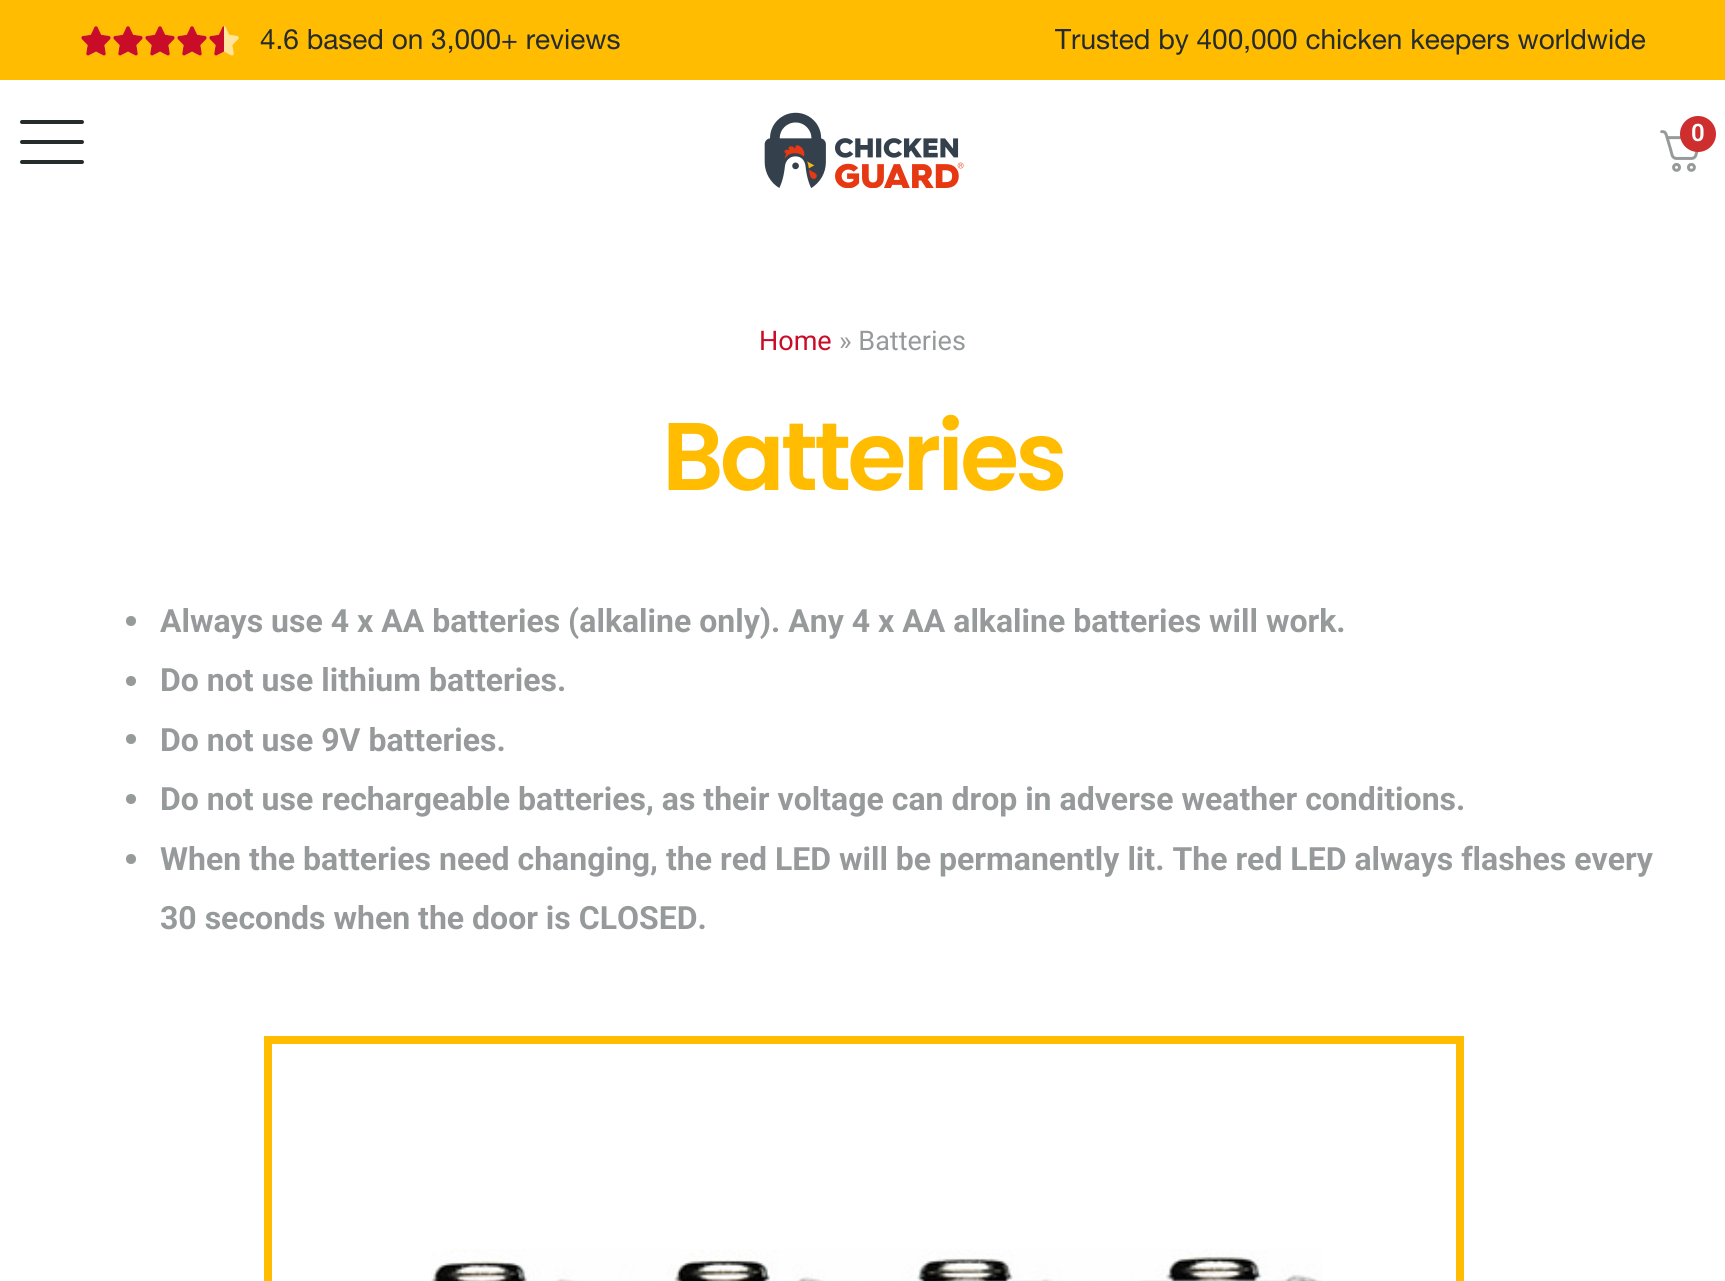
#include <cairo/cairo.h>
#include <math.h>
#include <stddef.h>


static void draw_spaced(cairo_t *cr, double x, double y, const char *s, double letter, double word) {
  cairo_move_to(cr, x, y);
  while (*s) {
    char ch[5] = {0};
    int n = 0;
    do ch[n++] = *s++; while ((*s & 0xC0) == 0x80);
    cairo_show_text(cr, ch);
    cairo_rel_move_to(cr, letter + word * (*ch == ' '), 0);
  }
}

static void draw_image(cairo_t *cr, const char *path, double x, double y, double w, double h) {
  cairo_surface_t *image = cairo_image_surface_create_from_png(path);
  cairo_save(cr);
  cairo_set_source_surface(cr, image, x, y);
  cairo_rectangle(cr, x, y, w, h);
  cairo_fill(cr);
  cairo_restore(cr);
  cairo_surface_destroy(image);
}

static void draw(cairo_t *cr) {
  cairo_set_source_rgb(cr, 1, 1, 1);
  cairo_paint(cr);
  cairo_set_source_rgb(cr, 1, 188 / 255.0, 1 / 255.0);
  cairo_rectangle(cr, 0, 0, 1725, 80);
  cairo_fill(cr);
  draw_image(cr, "images/1.png", 81, 26, 30, 30);
  draw_image(cr, "images/2.png", 81, 26, 30, 30);
  draw_image(cr, "images/1.png", 113, 26, 30, 30);
  draw_image(cr, "images/2.png", 113, 26, 30, 30);
  draw_image(cr, "images/1.png", 145, 26, 30, 30);
  draw_image(cr, "images/2.png", 145, 26, 30, 30);
  draw_image(cr, "images/1.png", 177, 26, 30, 30);
  draw_image(cr, "images/2.png", 177, 26, 30, 30);
  draw_image(cr, "images/1.png", 209, 26, 30, 30);
  draw_image(cr, "images/3.png", 209, 26, 15, 30);
  draw_image(cr, "images/4.png", 20, 120, 64, 44);
  draw_image(cr, "images/5.png", 764, 112, 200, 76);
  draw_image(cr, "images/6.png", 1660, 130, 39, 42);
  cairo_set_source_rgb(cr, 207 / 255.0, 46 / 255.0, 46 / 255.0);
  cairo_arc(cr, 1698, 134, 18, 0, 2 * M_PI);
  cairo_fill(cr);
  cairo_set_source_rgb(cr, 151 / 255.0, 154 / 255.0, 155 / 255.0);
  cairo_arc(cr, 131, 621, 5, 0, 2 * M_PI);
  cairo_fill(cr);
  cairo_arc(cr, 131, 681, 5, 0, 2 * M_PI);
  cairo_fill(cr);
  cairo_arc(cr, 131, 739, 5, 0, 2 * M_PI);
  cairo_fill(cr);
  cairo_arc(cr, 131, 799, 5, 0, 2 * M_PI);
  cairo_fill(cr);
  cairo_arc(cr, 131, 859, 5, 0, 2 * M_PI);
  cairo_fill(cr);
  cairo_rectangle(cr, 268, 1040, 1192, 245);
  cairo_set_source_rgb(cr, 1, 188 / 255.0, 1 / 255.0);
  cairo_set_line_width(cr, 8);
  cairo_stroke(cr);
  draw_image(cr, "images/7.png", 431, 1249, 891, 32);
  cairo_select_font_face(cr, "Helvetica Neue", CAIRO_FONT_SLANT_NORMAL, CAIRO_FONT_WEIGHT_NORMAL);
  cairo_set_font_size(cr, 28);
  cairo_set_source_rgb(cr, 38 / 255.0, 43 / 255.0, 44 / 255.0);
  cairo_move_to(cr, 260, 49);
  cairo_show_text(cr, "4.6 based on 3,000+ reviews");
  cairo_move_to(cr, 1055, 49);
  cairo_show_text(cr, "Trusted by 400,000 chicken keepers worldwide");
  cairo_select_font_face(cr, "Roboto SemiBold", CAIRO_FONT_SLANT_NORMAL, CAIRO_FONT_WEIGHT_NORMAL);
  cairo_set_font_size(cr, 24);
  cairo_set_source_rgb(cr, 1, 1, 1);
  cairo_move_to(cr, 1691, 141);
  cairo_show_text(cr, "0");
  cairo_select_font_face(cr, "Roboto", CAIRO_FONT_SLANT_NORMAL, CAIRO_FONT_WEIGHT_NORMAL);
  cairo_set_font_size(cr, 27);
  cairo_set_source_rgb(cr, 201 / 255.0, 13 / 255.0, 40 / 255.0);
  cairo_move_to(cr, 759, 350);
  cairo_show_text(cr, "Home");
  cairo_set_source_rgb(cr, 151 / 255.0, 154 / 255.0, 155 / 255.0);
  cairo_move_to(cr, 839, 350);
  cairo_show_text(cr, "» Batteries");
  cairo_select_font_face(cr, "Poppins SemiBold", CAIRO_FONT_SLANT_NORMAL, CAIRO_FONT_WEIGHT_NORMAL);
  cairo_set_font_size(cr, 96);
  cairo_set_source_rgb(cr, 1, 188 / 255.0, 1 / 255.0);
  draw_spaced(cr, 662, 490, "Batteries", -4, 0);
  cairo_select_font_face(cr, "Roboto", CAIRO_FONT_SLANT_NORMAL, CAIRO_FONT_WEIGHT_BOLD);
  cairo_set_font_size(cr, 32);
  cairo_set_source_rgb(cr, 151 / 255.0, 154 / 255.0, 155 / 255.0);
  cairo_move_to(cr, 160, 632);
  cairo_show_text(cr, "Always use 4 x AA batteries (alkaline only). Any 4 x AA alkaline batteries will work.");
  cairo_move_to(cr, 160, 691);
  cairo_show_text(cr, "Do not use lithium batteries.");
  cairo_move_to(cr, 160, 751);
  cairo_show_text(cr, "Do not use 9V batteries.");
  cairo_move_to(cr, 160, 810);
  cairo_show_text(cr, "Do not use rechargeable batteries, as their voltage can drop in adverse weather conditions.");
  cairo_move_to(cr, 160, 870);
  cairo_show_text(cr, "When the batteries need changing, the red LED will be permanently lit. The red LED always flashes every");
  cairo_move_to(cr, 160, 929);
  cairo_show_text(cr, "30 seconds when the door is CLOSED.");
}

int main(void) {
  cairo_surface_t *surface = cairo_image_surface_create(CAIRO_FORMAT_RGB24, 1725, 1281);
  cairo_t *cr = cairo_create(surface);
  cairo_font_options_t *options = cairo_font_options_create();
  cairo_font_options_set_hint_metrics(options, CAIRO_HINT_METRICS_OFF);
  cairo_font_options_set_hint_style(options, CAIRO_HINT_STYLE_NONE);
  cairo_set_font_options(cr, options);
  cairo_set_miter_limit(cr, 4);
  draw(cr);
  cairo_surface_write_to_png(surface, "out.png");
  cairo_font_options_destroy(options);
  cairo_destroy(cr);
  cairo_surface_destroy(surface);
  return 0;
}
